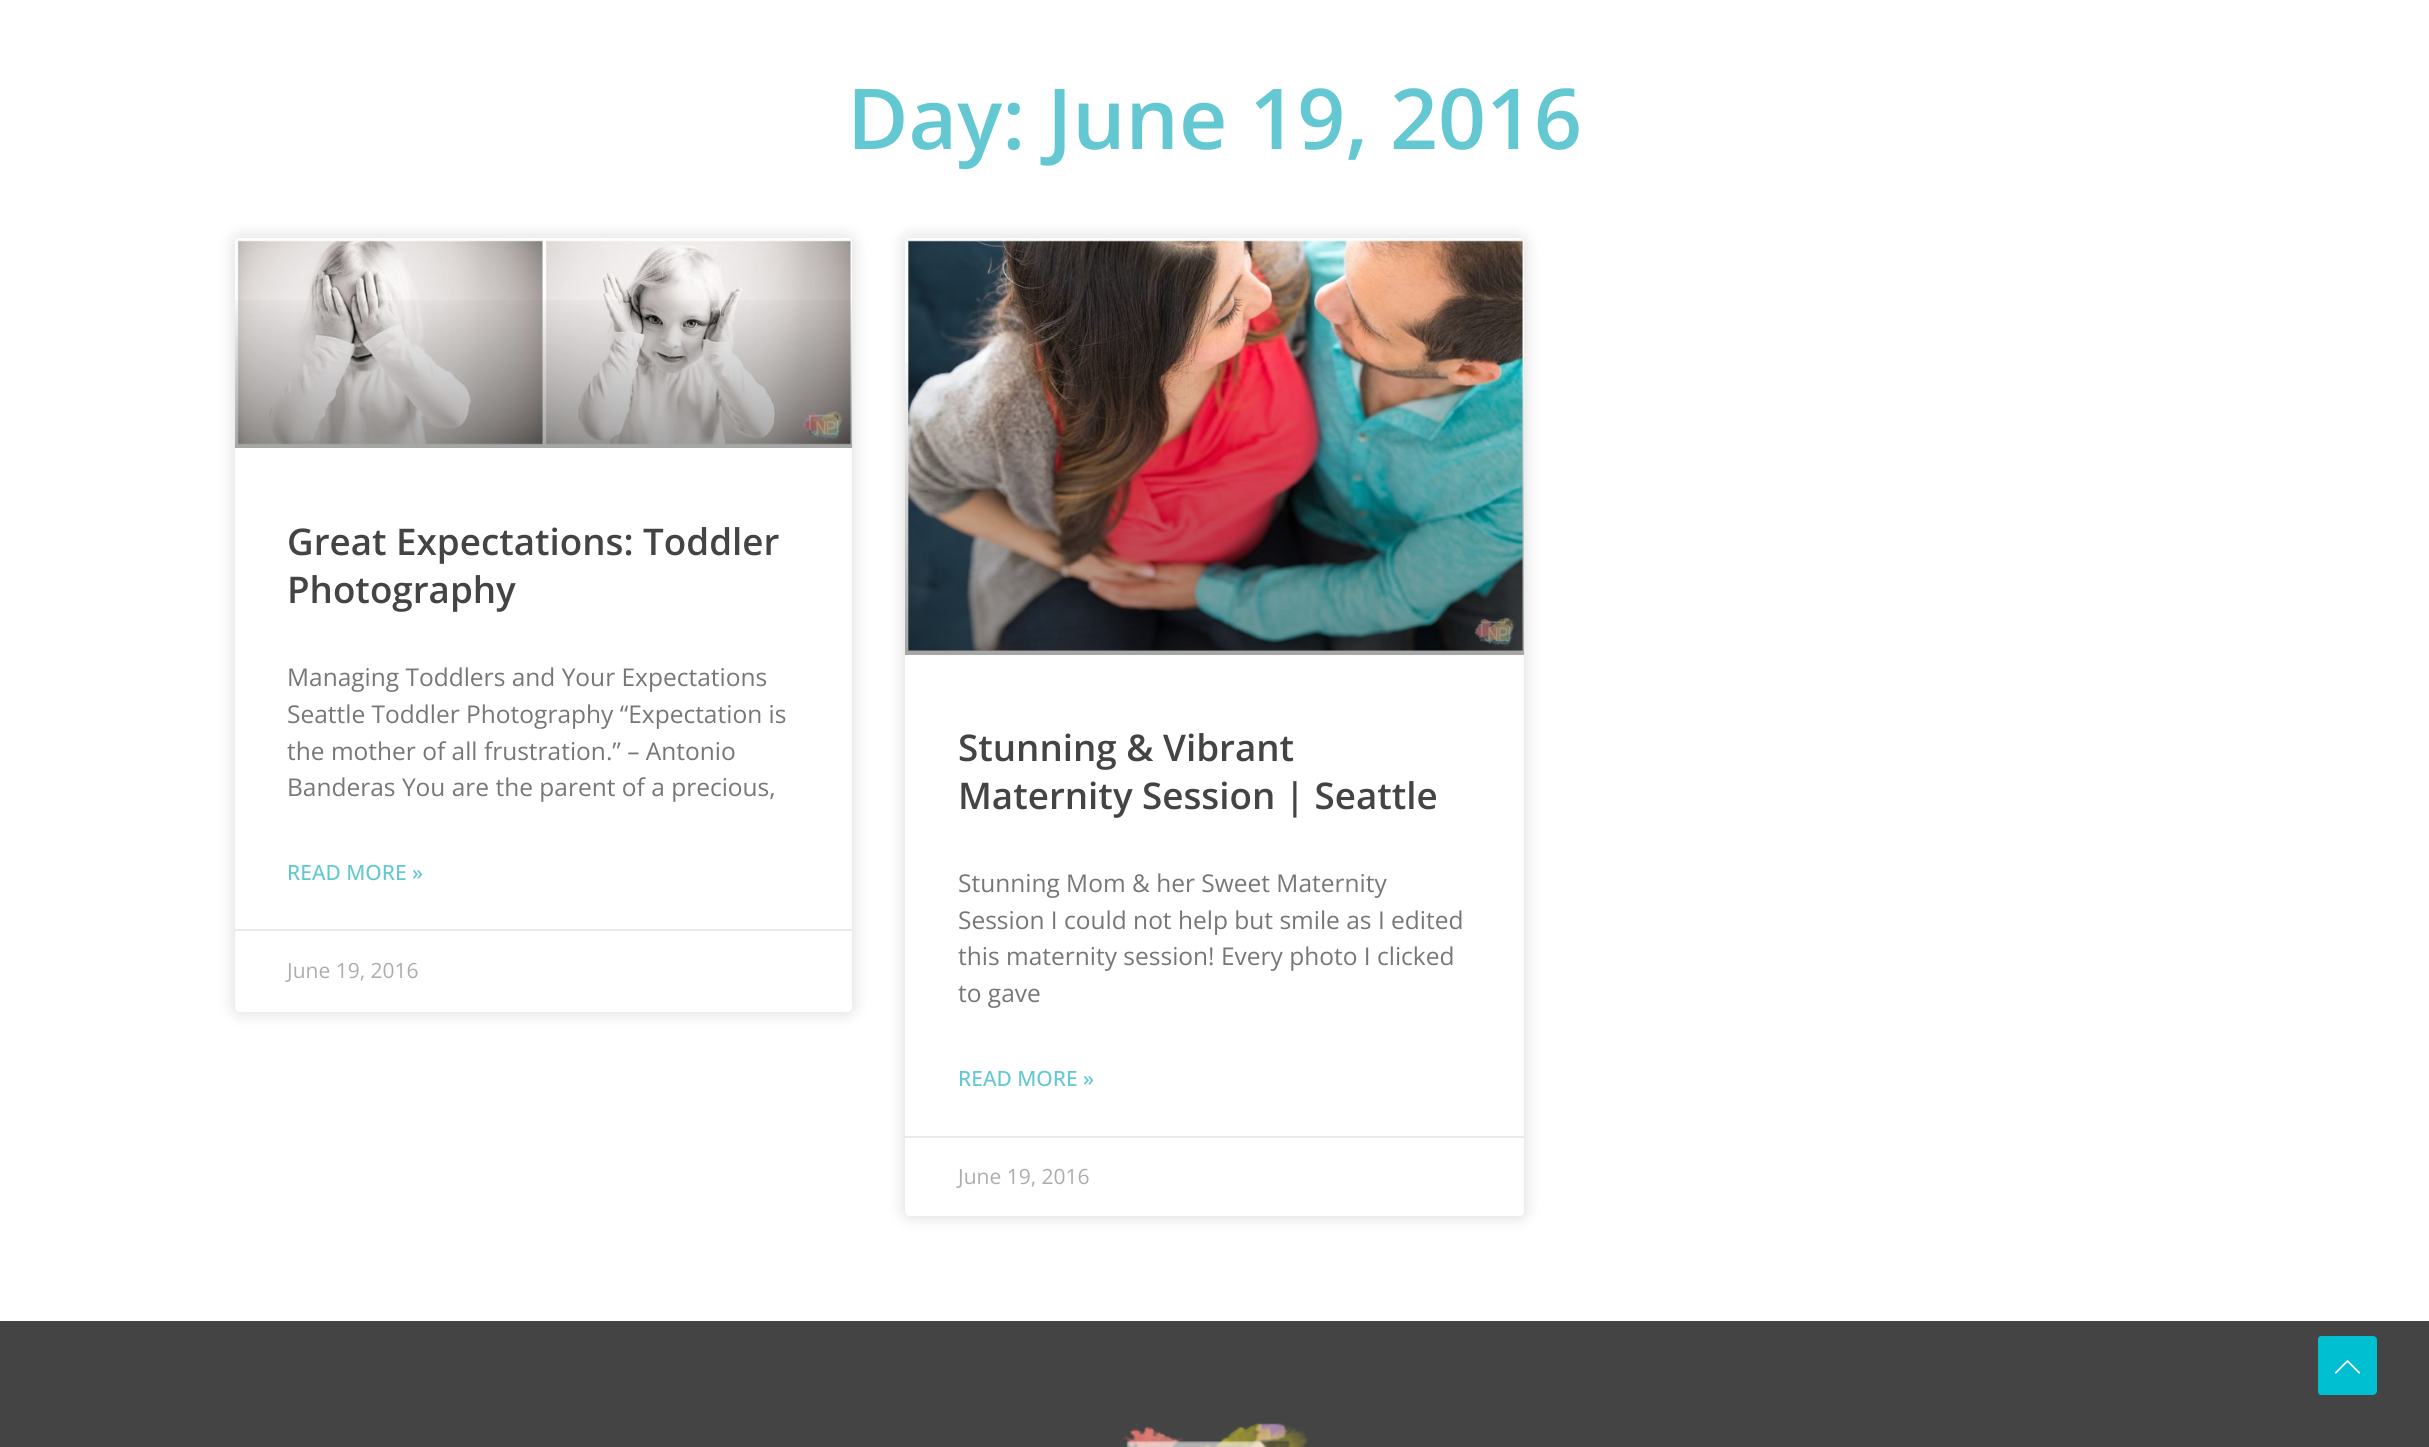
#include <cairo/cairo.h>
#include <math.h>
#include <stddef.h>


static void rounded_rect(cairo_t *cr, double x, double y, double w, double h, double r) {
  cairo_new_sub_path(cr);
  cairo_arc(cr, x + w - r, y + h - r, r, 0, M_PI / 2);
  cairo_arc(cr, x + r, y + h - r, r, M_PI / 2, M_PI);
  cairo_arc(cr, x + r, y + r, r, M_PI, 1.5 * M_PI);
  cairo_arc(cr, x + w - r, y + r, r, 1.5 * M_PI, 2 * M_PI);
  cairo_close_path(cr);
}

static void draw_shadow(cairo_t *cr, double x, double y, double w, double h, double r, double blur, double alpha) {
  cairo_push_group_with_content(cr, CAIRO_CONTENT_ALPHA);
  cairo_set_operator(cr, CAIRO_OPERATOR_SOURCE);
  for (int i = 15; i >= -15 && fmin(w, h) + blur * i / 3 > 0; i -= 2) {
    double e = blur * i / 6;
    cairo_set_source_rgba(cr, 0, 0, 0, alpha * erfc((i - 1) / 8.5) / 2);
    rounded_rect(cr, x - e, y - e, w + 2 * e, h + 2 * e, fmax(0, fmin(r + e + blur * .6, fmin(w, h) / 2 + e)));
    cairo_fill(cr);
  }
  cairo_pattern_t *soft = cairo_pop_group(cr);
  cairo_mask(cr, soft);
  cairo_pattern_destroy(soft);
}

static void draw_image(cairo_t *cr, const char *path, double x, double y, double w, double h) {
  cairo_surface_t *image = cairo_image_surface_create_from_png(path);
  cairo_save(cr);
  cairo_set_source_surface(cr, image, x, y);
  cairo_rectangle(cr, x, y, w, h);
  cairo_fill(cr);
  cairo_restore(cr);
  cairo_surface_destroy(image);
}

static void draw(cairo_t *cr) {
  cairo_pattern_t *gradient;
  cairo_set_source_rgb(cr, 1, 1, 1);
  cairo_paint(cr);
  cairo_set_source_rgb(cr, 0, 0, 0);
  draw_shadow(cr, 235, 238, 617, 774, 5, 9, 0.15);
  cairo_set_source_rgb(cr, 1, 1, 1);
  rounded_rect(cr, 235, 238, 617, 774, 5);
  cairo_fill(cr);
  draw_image(cr, "images/1.png", 235, 238, 617, 209);
  gradient = cairo_pattern_create_linear(543, 448, 543, 238);
  cairo_pattern_add_color_stop_rgba(gradient, 0, 0, 0, 0, 0.35);
  cairo_pattern_add_color_stop_rgba(gradient, 0.75, 0, 0, 0, 0);
  cairo_set_source(cr, gradient);
  cairo_pattern_destroy(gradient);
  cairo_rectangle(cr, 235, 300, 617, 148);
  cairo_fill(cr);
  cairo_set_source_rgb(cr, 234 / 255.0, 234 / 255.0, 234 / 255.0);
  cairo_rectangle(cr, 235, 929, 617, 2);
  cairo_fill(cr);
  cairo_set_source_rgb(cr, 0, 0, 0);
  draw_shadow(cr, 905, 238, 619, 978, 5, 9, 0.15);
  cairo_set_source_rgb(cr, 1, 1, 1);
  rounded_rect(cr, 905, 238, 619, 978, 5);
  cairo_fill(cr);
  draw_image(cr, "images/2.png", 905, 238, 619, 414);
  gradient = cairo_pattern_create_linear(1215, 655, 1215, 238);
  cairo_pattern_add_color_stop_rgba(gradient, 0, 0, 0, 0, 0.35);
  cairo_pattern_add_color_stop_rgba(gradient, 0.75, 0, 0, 0, 0);
  cairo_set_source(cr, gradient);
  cairo_pattern_destroy(gradient);
  cairo_rectangle(cr, 905, 362, 619, 293);
  cairo_fill(cr);
  cairo_set_source_rgb(cr, 234 / 255.0, 234 / 255.0, 234 / 255.0);
  cairo_rectangle(cr, 905, 1136, 619, 2);
  cairo_fill(cr);
  cairo_set_source_rgb(cr, 68 / 255.0, 68 / 255.0, 68 / 255.0);
  cairo_rectangle(cr, 0, 1321, 2429, 126);
  cairo_fill(cr);
  draw_image(cr, "images/3.png", 1113, 1419, 195, 28);
  cairo_set_source_rgb(cr, 0, 191 / 255.0, 209 / 255.0);
  cairo_new_path(cr);
  cairo_move_to(cr, 2373, 1395);
  cairo_line_to(cr, 2321, 1395);
  cairo_curve_to(cr, 2319, 1395, 2318, 1393, 2318, 1391);
  cairo_line_to(cr, 2318, 1339);
  cairo_curve_to(cr, 2318, 1338, 2319, 1336, 2321, 1336);
  cairo_line_to(cr, 2373, 1336);
  cairo_curve_to(cr, 2375, 1336, 2377, 1338, 2377, 1339);
  cairo_line_to(cr, 2377, 1391);
  cairo_curve_to(cr, 2377, 1393, 2375, 1395, 2373, 1395);
  cairo_close_path(cr);
  cairo_fill(cr);
  draw_image(cr, "images/4.png", 2334, 1360, 26, 14);
  cairo_select_font_face(cr, "Open Sans SemiBold", CAIRO_FONT_SLANT_NORMAL, CAIRO_FONT_WEIGHT_NORMAL);
  cairo_set_font_size(cr, 84);
  cairo_set_source_rgb(cr, 99 / 255.0, 200 / 255.0, 209 / 255.0);
  cairo_move_to(cr, 847, 149);
  cairo_show_text(cr, "Day: June 19, 2016");
  cairo_set_font_size(cr, 36.75);
  cairo_set_source_rgb(cr, 68 / 255.0, 68 / 255.0, 68 / 255.0);
  cairo_move_to(cr, 287, 555);
  cairo_show_text(cr, "Great Expectations: Toddler");
  cairo_move_to(cr, 287, 603);
  cairo_show_text(cr, "Photography");
  cairo_select_font_face(cr, "Open Sans", CAIRO_FONT_SLANT_NORMAL, CAIRO_FONT_WEIGHT_NORMAL);
  cairo_set_font_size(cr, 24.5);
  cairo_set_source_rgb(cr, 119 / 255.0, 119 / 255.0, 119 / 255.0);
  cairo_move_to(cr, 287, 686);
  cairo_show_text(cr, "Managing Toddlers and Your Expectations");
  cairo_move_to(cr, 287, 723);
  cairo_show_text(cr, "Seattle Toddler Photography “Expectation is");
  cairo_move_to(cr, 287, 760);
  cairo_show_text(cr, "the mother of all frustration.” – Antonio");
  cairo_move_to(cr, 287, 796);
  cairo_show_text(cr, "Banderas You are the parent of a precious,");
  cairo_select_font_face(cr, "Open Sans Medium", CAIRO_FONT_SLANT_NORMAL, CAIRO_FONT_WEIGHT_NORMAL);
  cairo_set_font_size(cr, 21);
  cairo_set_source_rgb(cr, 99 / 255.0, 200 / 255.0, 209 / 255.0);
  cairo_move_to(cr, 287, 880);
  cairo_show_text(cr, "READ MORE »");
  cairo_select_font_face(cr, "Open Sans", CAIRO_FONT_SLANT_NORMAL, CAIRO_FONT_WEIGHT_NORMAL);
  cairo_set_source_rgb(cr, 173 / 255.0, 173 / 255.0, 173 / 255.0);
  cairo_move_to(cr, 287, 978);
  cairo_show_text(cr, "June 19, 2016");
  cairo_select_font_face(cr, "Open Sans SemiBold", CAIRO_FONT_SLANT_NORMAL, CAIRO_FONT_WEIGHT_NORMAL);
  cairo_set_font_size(cr, 36.75);
  cairo_set_source_rgb(cr, 68 / 255.0, 68 / 255.0, 68 / 255.0);
  cairo_move_to(cr, 958, 761);
  cairo_show_text(cr, "Stunning & Vibrant");
  cairo_move_to(cr, 958, 809);
  cairo_show_text(cr, "Maternity Session | Seattle");
  cairo_select_font_face(cr, "Open Sans", CAIRO_FONT_SLANT_NORMAL, CAIRO_FONT_WEIGHT_NORMAL);
  cairo_set_font_size(cr, 24.5);
  cairo_set_source_rgb(cr, 119 / 255.0, 119 / 255.0, 119 / 255.0);
  cairo_move_to(cr, 958, 892);
  cairo_show_text(cr, "Stunning Mom & her Sweet Maternity");
  cairo_move_to(cr, 958, 929);
  cairo_show_text(cr, "Session I could not help but smile as I edited");
  cairo_move_to(cr, 958, 965);
  cairo_show_text(cr, "this maternity session! Every photo I clicked");
  cairo_move_to(cr, 958, 1002);
  cairo_show_text(cr, "to gave");
  cairo_select_font_face(cr, "Open Sans Medium", CAIRO_FONT_SLANT_NORMAL, CAIRO_FONT_WEIGHT_NORMAL);
  cairo_set_font_size(cr, 21);
  cairo_set_source_rgb(cr, 99 / 255.0, 200 / 255.0, 209 / 255.0);
  cairo_move_to(cr, 958, 1086);
  cairo_show_text(cr, "READ MORE »");
  cairo_select_font_face(cr, "Open Sans", CAIRO_FONT_SLANT_NORMAL, CAIRO_FONT_WEIGHT_NORMAL);
  cairo_set_source_rgb(cr, 173 / 255.0, 173 / 255.0, 173 / 255.0);
  cairo_move_to(cr, 958, 1184);
  cairo_show_text(cr, "June 19, 2016");
}

int main(void) {
  cairo_surface_t *surface = cairo_image_surface_create(CAIRO_FORMAT_RGB24, 2429, 1447);
  cairo_t *cr = cairo_create(surface);
  cairo_font_options_t *options = cairo_font_options_create();
  cairo_font_options_set_hint_metrics(options, CAIRO_HINT_METRICS_OFF);
  cairo_font_options_set_hint_style(options, CAIRO_HINT_STYLE_NONE);
  cairo_set_font_options(cr, options);
  cairo_set_miter_limit(cr, 4);
  draw(cr);
  cairo_surface_write_to_png(surface, "out.png");
  cairo_font_options_destroy(options);
  cairo_destroy(cr);
  cairo_surface_destroy(surface);
  return 0;
}
